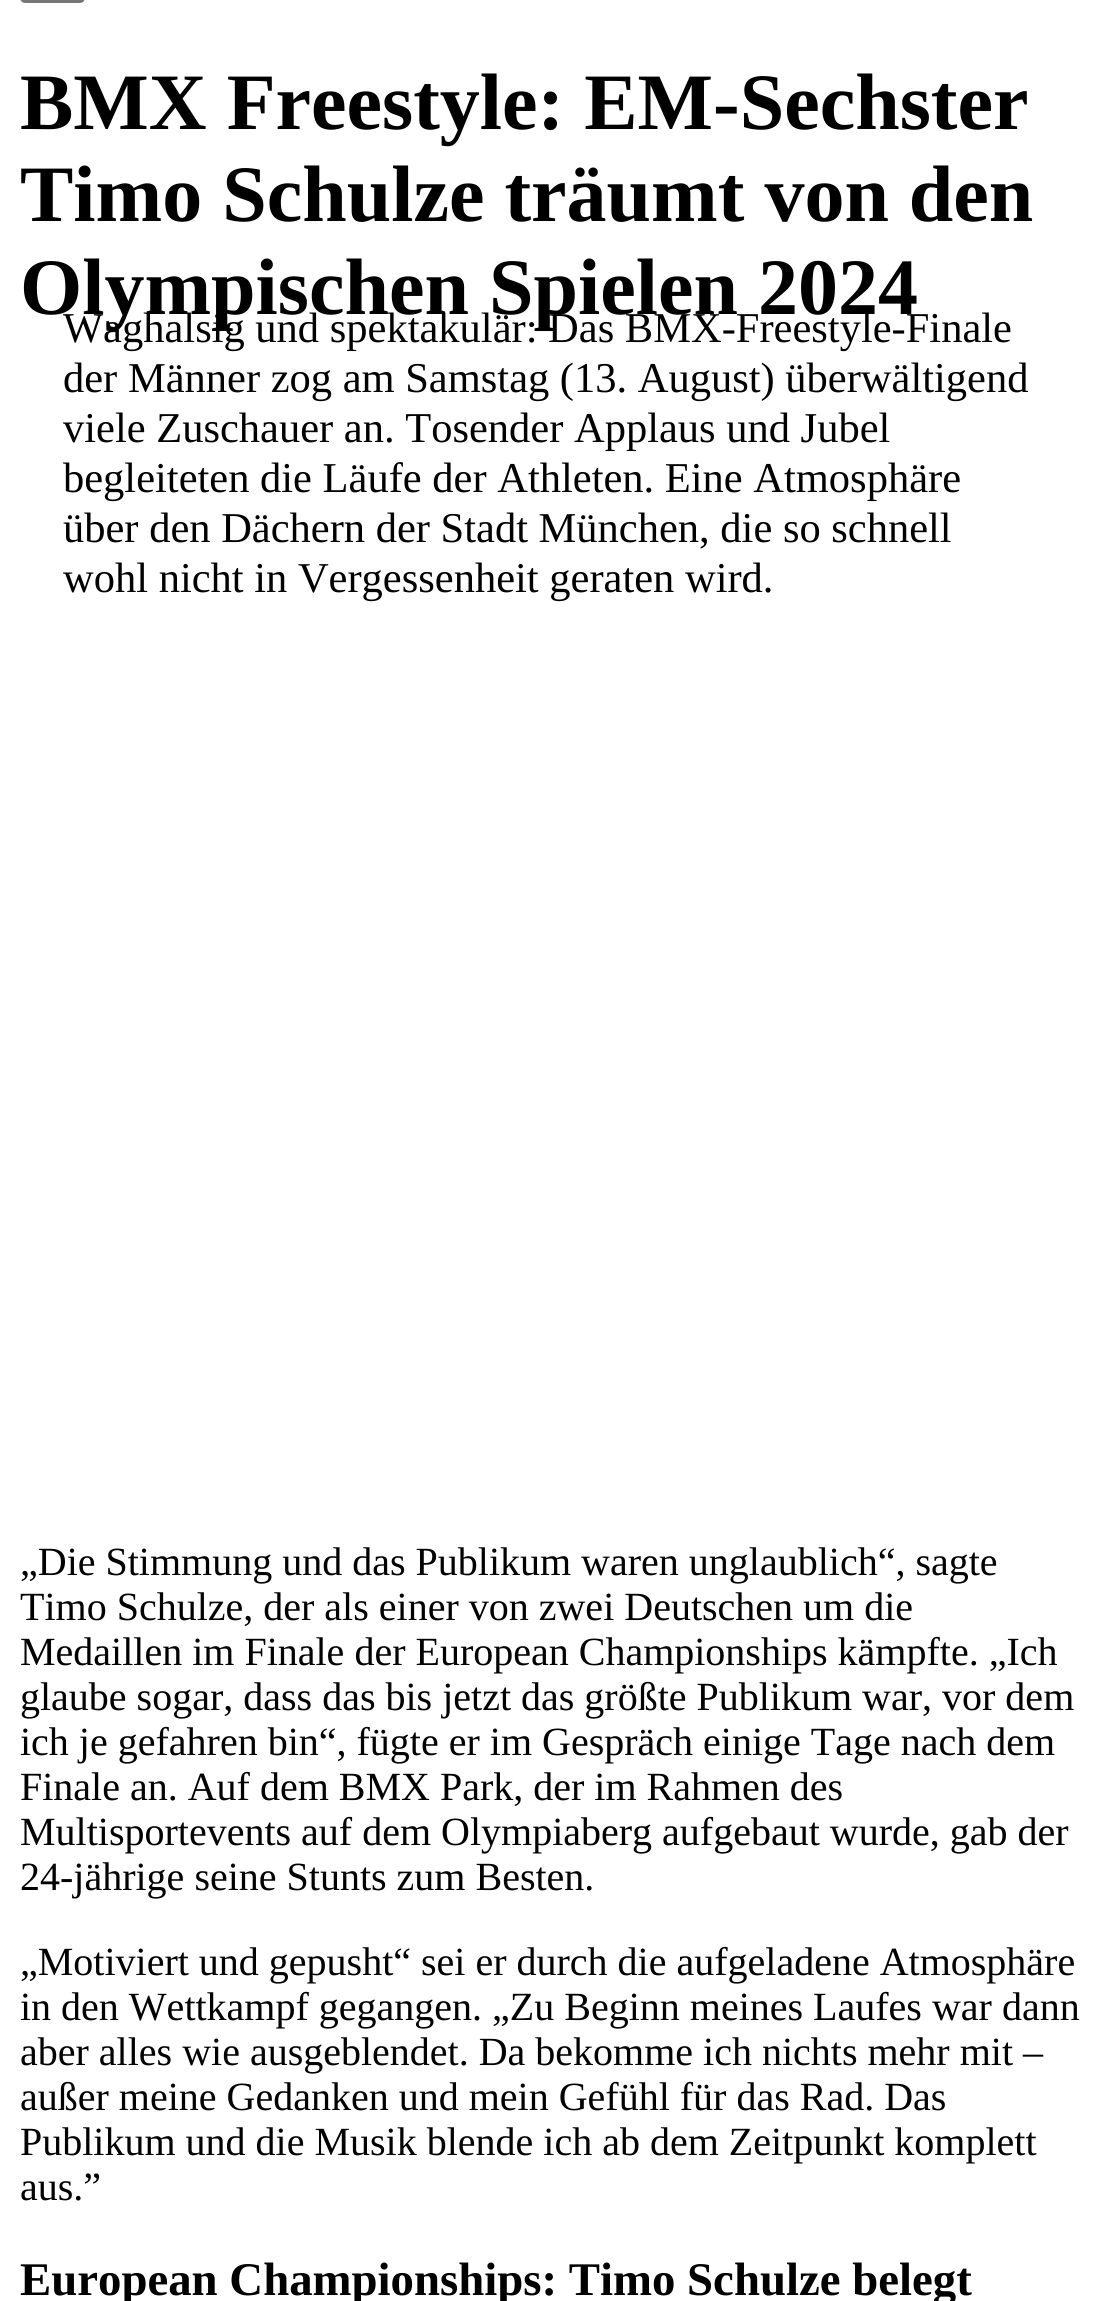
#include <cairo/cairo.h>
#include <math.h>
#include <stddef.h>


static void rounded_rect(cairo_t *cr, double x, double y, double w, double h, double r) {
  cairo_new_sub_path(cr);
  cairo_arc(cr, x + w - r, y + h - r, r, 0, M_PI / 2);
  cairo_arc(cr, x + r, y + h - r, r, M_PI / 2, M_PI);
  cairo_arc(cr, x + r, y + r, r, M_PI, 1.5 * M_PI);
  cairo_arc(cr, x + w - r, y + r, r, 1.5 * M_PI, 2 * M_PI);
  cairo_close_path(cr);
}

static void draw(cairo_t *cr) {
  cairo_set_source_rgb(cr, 1, 1, 1);
  cairo_paint(cr);
  rounded_rect(cr, 21.5, -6.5, 62, 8, 3.5);
  cairo_set_source_rgb(cr, 118 / 255.0, 118 / 255.0, 118 / 255.0);
  cairo_set_line_width(cr, 3);
  cairo_stroke(cr);
  cairo_select_font_face(cr, "Liberation Serif", CAIRO_FONT_SLANT_NORMAL, CAIRO_FONT_WEIGHT_BOLD);
  cairo_set_font_size(cr, 80);
  cairo_set_source_rgb(cr, 0, 0, 0);
  cairo_move_to(cr, 20, 129);
  cairo_show_text(cr, "BMX Freestyle: EM-Sechster");
  cairo_move_to(cr, 20, 221);
  cairo_show_text(cr, "Timo Schulze träumt von den");
  cairo_move_to(cr, 20, 314);
  cairo_show_text(cr, "Olympischen Spielen 2024");
  cairo_select_font_face(cr, "Liberation Serif", CAIRO_FONT_SLANT_NORMAL, CAIRO_FONT_WEIGHT_NORMAL);
  cairo_set_font_size(cr, 42.5);
  cairo_move_to(cr, 63, 342);
  cairo_show_text(cr, "Waghalsig und spektakulär: Das BMX-Freestyle-Finale");
  cairo_move_to(cr, 63, 392);
  cairo_show_text(cr, "der Männer zog am Samstag (13. August) überwältigend");
  cairo_move_to(cr, 63, 442);
  cairo_show_text(cr, "viele Zuschauer an. Tosender Applaus und Jubel");
  cairo_move_to(cr, 63, 492);
  cairo_show_text(cr, "begleiteten die Läufe der Athleten. Eine Atmosphäre");
  cairo_move_to(cr, 63, 542);
  cairo_show_text(cr, "über den Dächern der Stadt München, die so schnell");
  cairo_move_to(cr, 63, 592);
  cairo_show_text(cr, "wohl nicht in Vergessenheit geraten wird.");
  cairo_set_font_size(cr, 40);
  cairo_move_to(cr, 20, 1575);
  cairo_show_text(cr, "„Die Stimmung und das Publikum waren unglaublich“, sagte");
  cairo_move_to(cr, 20, 1620);
  cairo_show_text(cr, "Timo Schulze, der als einer von zwei Deutschen um die");
  cairo_move_to(cr, 20, 1665);
  cairo_show_text(cr, "Medaillen im Finale der European Championships kämpfte. „Ich");
  cairo_move_to(cr, 20, 1710);
  cairo_show_text(cr, "glaube sogar, dass das bis jetzt das größte Publikum war, vor dem");
  cairo_move_to(cr, 20, 1755);
  cairo_show_text(cr, "ich je gefahren bin“, fügte er im Gespräch einige Tage nach dem");
  cairo_move_to(cr, 20, 1800);
  cairo_show_text(cr, "Finale an. Auf dem BMX Park, der im Rahmen des");
  cairo_move_to(cr, 20, 1845);
  cairo_show_text(cr, "Multisportevents auf dem Olympiaberg aufgebaut wurde, gab der");
  cairo_move_to(cr, 20, 1890);
  cairo_show_text(cr, "24-jährige seine Stunts zum Besten.");
  cairo_move_to(cr, 20, 1975);
  cairo_show_text(cr, "„Motiviert und gepusht“ sei er durch die aufgeladene Atmosphäre");
  cairo_move_to(cr, 20, 2020);
  cairo_show_text(cr, "in den Wettkampf gegangen. „Zu Beginn meines Laufes war dann");
  cairo_move_to(cr, 20, 2065);
  cairo_show_text(cr, "aber alles wie ausgeblendet. Da bekomme ich nichts mehr mit –");
  cairo_move_to(cr, 20, 2110);
  cairo_show_text(cr, "außer meine Gedanken und mein Gefühl für das Rad. Das");
  cairo_move_to(cr, 20, 2155);
  cairo_show_text(cr, "Publikum und die Musik blende ich ab dem Zeitpunkt komplett");
  cairo_move_to(cr, 20, 2200);
  cairo_show_text(cr, "aus.”");
  cairo_select_font_face(cr, "Liberation Serif", CAIRO_FONT_SLANT_NORMAL, CAIRO_FONT_WEIGHT_BOLD);
  cairo_set_font_size(cr, 46.8);
  cairo_move_to(cr, 20, 2295);
  cairo_show_text(cr, "European Championships: Timo Schulze belegt");
}

int main(void) {
  cairo_surface_t *surface = cairo_image_surface_create(CAIRO_FORMAT_RGB24, 1104, 2301);
  cairo_t *cr = cairo_create(surface);
  cairo_font_options_t *options = cairo_font_options_create();
  cairo_font_options_set_hint_metrics(options, CAIRO_HINT_METRICS_OFF);
  cairo_font_options_set_hint_style(options, CAIRO_HINT_STYLE_NONE);
  cairo_set_font_options(cr, options);
  cairo_set_miter_limit(cr, 4);
  draw(cr);
  cairo_surface_write_to_png(surface, "out.png");
  cairo_font_options_destroy(options);
  cairo_destroy(cr);
  cairo_surface_destroy(surface);
  return 0;
}
